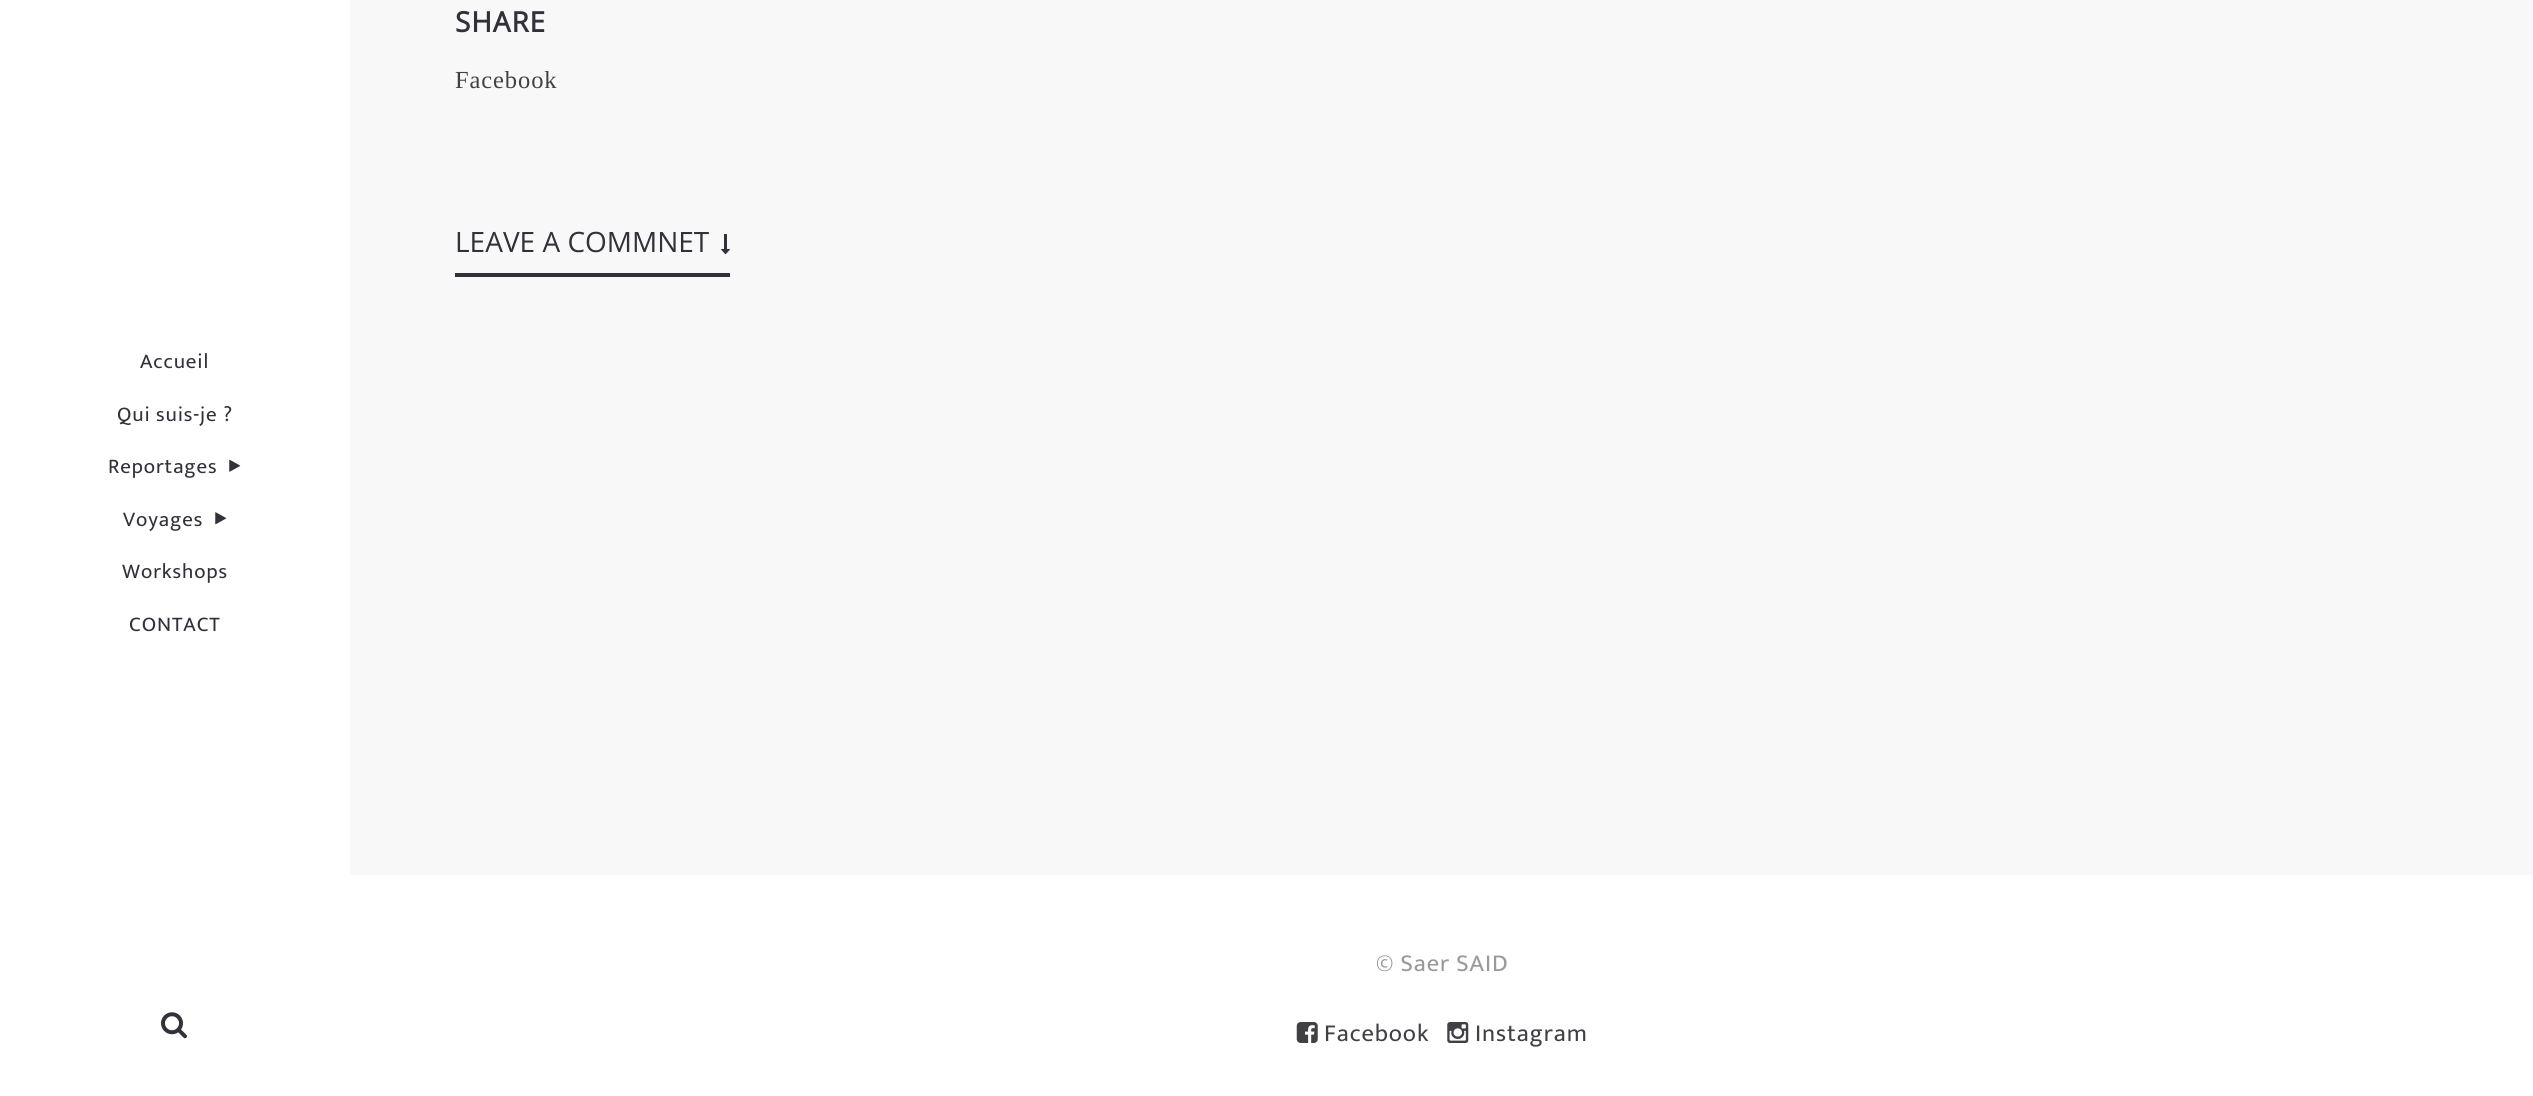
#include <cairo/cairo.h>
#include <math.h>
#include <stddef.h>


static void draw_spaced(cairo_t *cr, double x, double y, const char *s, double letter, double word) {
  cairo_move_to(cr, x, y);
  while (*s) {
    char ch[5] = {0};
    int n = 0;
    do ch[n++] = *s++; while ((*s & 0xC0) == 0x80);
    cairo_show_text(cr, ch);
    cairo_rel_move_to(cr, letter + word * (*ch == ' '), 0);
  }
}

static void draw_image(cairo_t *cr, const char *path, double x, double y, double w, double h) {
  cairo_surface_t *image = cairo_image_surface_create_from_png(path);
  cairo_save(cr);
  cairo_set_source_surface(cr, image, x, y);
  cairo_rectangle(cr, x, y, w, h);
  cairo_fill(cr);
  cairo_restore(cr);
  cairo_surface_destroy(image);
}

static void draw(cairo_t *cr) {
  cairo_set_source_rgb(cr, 248 / 255.0, 248 / 255.0, 248 / 255.0);
  cairo_paint(cr);
  cairo_set_source_rgb(cr, 49 / 255.0, 49 / 255.0, 57 / 255.0);
  cairo_rectangle(cr, 455, 273, 275, 4);
  cairo_fill(cr);
  draw_image(cr, "images/1.png", 721, 234, 9, 21);
  cairo_set_source_rgb(cr, 1, 1, 1);
  cairo_rectangle(cr, 0, 0, 350, 1096);
  cairo_fill(cr);
  draw_image(cr, "images/2.png", 229, 459, 12, 13);
  draw_image(cr, "images/3.png", 215, 512, 12, 13);
  draw_image(cr, "images/4.png", 161, 1012, 26, 27);
  cairo_rectangle(cr, 350, 875, 2183, 221);
  cairo_fill(cr);
  draw_image(cr, "images/5.png", 1296, 1022, 22, 21);
  draw_image(cr, "images/6.png", 1447, 1022, 22, 21);
  cairo_select_font_face(cr, "Open Sans", CAIRO_FONT_SLANT_NORMAL, CAIRO_FONT_WEIGHT_BOLD);
  cairo_set_font_size(cr, 28);
  cairo_set_source_rgb(cr, 49 / 255.0, 49 / 255.0, 57 / 255.0);
  draw_spaced(cr, 455, 32, "SHARE", 0.9, 0);
  cairo_select_font_face(cr, "Liberation Serif", CAIRO_FONT_SLANT_NORMAL, CAIRO_FONT_WEIGHT_NORMAL);
  cairo_set_font_size(cr, 24.5);
  cairo_set_source_rgb(cr, 65 / 255.0, 65 / 255.0, 69 / 255.0);
  draw_spaced(cr, 455, 88, "Facebook", 0.9, 0);
  cairo_select_font_face(cr, "Open Sans", CAIRO_FONT_SLANT_NORMAL, CAIRO_FONT_WEIGHT_NORMAL);
  cairo_set_font_size(cr, 28);
  cairo_set_source_rgb(cr, 49 / 255.0, 49 / 255.0, 57 / 255.0);
  cairo_move_to(cr, 455, 252);
  cairo_show_text(cr, "LEAVE A COMMNET");
  cairo_select_font_face(cr, "Ek Mukta", CAIRO_FONT_SLANT_NORMAL, CAIRO_FONT_WEIGHT_NORMAL);
  cairo_set_font_size(cr, 21);
  draw_spaced(cr, 140, 368, "Accueil", 0.9, 0);
  draw_spaced(cr, 117, 421, "Qui suis-je ?", 0.9, 0);
  draw_spaced(cr, 108, 473, "Reportages", 0.9, 0);
  draw_spaced(cr, 123, 526, "Voyages", 0.9, 0);
  draw_spaced(cr, 122, 578, "Workshops", 0.9, 0);
  draw_spaced(cr, 129, 631, "CONTACT", 0.9, 0);
  cairo_set_font_size(cr, 24.5);
  cairo_set_source_rgb(cr, 153 / 255.0, 153 / 255.0, 153 / 255.0);
  draw_spaced(cr, 1376, 971, "© Saer SAID", 0.9, 0);
  cairo_set_source_rgb(cr, 65 / 255.0, 65 / 255.0, 69 / 255.0);
  draw_spaced(cr, 1324, 1041, "Facebook", 0.9, 0);
  draw_spaced(cr, 1475, 1041, "Instagram", 0.9, 0);
}

int main(void) {
  cairo_surface_t *surface = cairo_image_surface_create(CAIRO_FORMAT_RGB24, 2533, 1096);
  cairo_t *cr = cairo_create(surface);
  cairo_font_options_t *options = cairo_font_options_create();
  cairo_font_options_set_hint_metrics(options, CAIRO_HINT_METRICS_OFF);
  cairo_font_options_set_hint_style(options, CAIRO_HINT_STYLE_NONE);
  cairo_set_font_options(cr, options);
  cairo_set_miter_limit(cr, 4);
  draw(cr);
  cairo_surface_write_to_png(surface, "out.png");
  cairo_font_options_destroy(options);
  cairo_destroy(cr);
  cairo_surface_destroy(surface);
  return 0;
}
